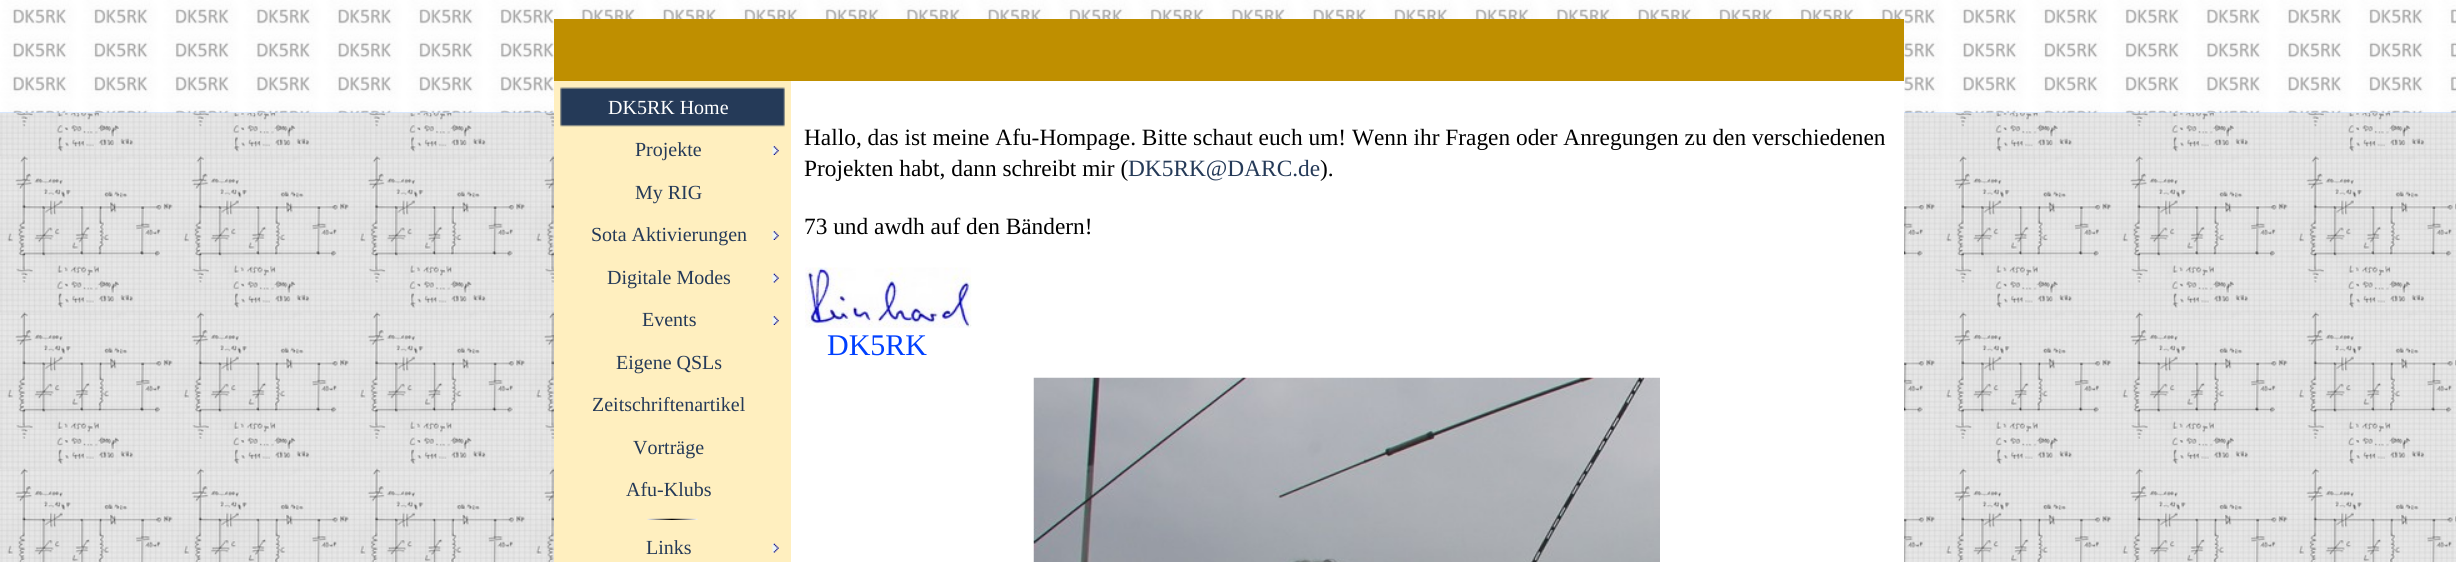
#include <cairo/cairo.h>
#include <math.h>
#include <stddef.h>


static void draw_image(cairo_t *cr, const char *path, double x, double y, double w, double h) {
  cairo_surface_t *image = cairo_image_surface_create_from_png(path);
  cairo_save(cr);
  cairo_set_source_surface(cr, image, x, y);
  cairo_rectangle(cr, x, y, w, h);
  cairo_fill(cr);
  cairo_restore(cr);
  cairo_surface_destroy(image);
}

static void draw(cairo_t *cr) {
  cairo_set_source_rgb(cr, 1, 1, 1);
  cairo_paint(cr);
  draw_image(cr, "images/1.png", 0, 113, 2456, 449);
  cairo_set_source_rgb(cr, 176 / 255.0, 209 / 255.0, 1);
  cairo_rectangle(cr, 0, 112, 2456, 1);
  cairo_fill(cr);
  draw_image(cr, "images/2.png", 0, 0, 2456, 113);
  cairo_set_source_rgb(cr, 191 / 255.0, 143 / 255.0, 0);
  cairo_rectangle(cr, 554, 19, 1350, 62);
  cairo_fill(cr);
  cairo_set_source_rgb(cr, 1, 239 / 255.0, 191 / 255.0);
  cairo_rectangle(cr, 554, 81, 237, 481);
  cairo_fill(cr);
  draw_image(cr, "images/3.png", 560, 87, 225, 40);
  draw_image(cr, "images/4.png", 772, 146, 7, 9);
  draw_image(cr, "images/4.png", 772, 231, 7, 9);
  draw_image(cr, "images/5.png", 772, 273, 7, 10);
  draw_image(cr, "images/4.png", 772, 316, 7, 9);
  draw_image(cr, "images/6.png", 647, 518, 51, 2);
  draw_image(cr, "images/5.png", 772, 543, 7, 10);
  cairo_set_source_rgb(cr, 1, 1, 1);
  cairo_rectangle(cr, 791, 81, 1113, 481);
  cairo_fill(cr);
  draw_image(cr, "images/7.png", 805, 267, 167, 61);
  draw_image(cr, "images/8.png", 1033, 377, 627, 185);
  cairo_select_font_face(cr, "Liberation Serif", CAIRO_FONT_SLANT_NORMAL, CAIRO_FONT_WEIGHT_NORMAL);
  cairo_set_font_size(cr, 20);
  cairo_move_to(cr, 608, 114);
  cairo_show_text(cr, "DK5RK Home");
  cairo_set_source_rgb(cr, 37 / 255.0, 58 / 255.0, 88 / 255.0);
  cairo_move_to(cr, 635, 156);
  cairo_show_text(cr, "Projekte");
  cairo_move_to(cr, 635, 199);
  cairo_show_text(cr, "My RIG");
  cairo_move_to(cr, 591, 241);
  cairo_show_text(cr, "Sota Aktivierungen");
  cairo_move_to(cr, 607, 284);
  cairo_show_text(cr, "Digitale Modes");
  cairo_move_to(cr, 642, 326);
  cairo_show_text(cr, "Events");
  cairo_move_to(cr, 616, 369);
  cairo_show_text(cr, "Eigene QSLs");
  cairo_move_to(cr, 592, 411);
  cairo_show_text(cr, "Zeitschriftenartikel");
  cairo_move_to(cr, 633, 454);
  cairo_show_text(cr, "Vorträge");
  cairo_move_to(cr, 626, 496);
  cairo_show_text(cr, "Afu-Klubs");
  cairo_move_to(cr, 646, 554);
  cairo_show_text(cr, "Links");
  cairo_set_font_size(cr, 23.35);
  cairo_set_source_rgb(cr, 0, 0, 0);
  cairo_move_to(cr, 804, 145);
  cairo_show_text(cr, "Hallo, das ist meine Afu-Hompage. Bitte schaut euch um! Wenn ihr Fragen oder Anregungen zu den verschiedenen");
  cairo_move_to(cr, 804, 176);
  cairo_show_text(cr, "Projekten habt, dann schreibt mir (");
  cairo_set_source_rgb(cr, 37 / 255.0, 58 / 255.0, 88 / 255.0);
  cairo_move_to(cr, 1128, 176);
  cairo_show_text(cr, "DK5RK@DARC.de");
  cairo_set_source_rgb(cr, 0, 0, 0);
  cairo_move_to(cr, 1320, 176);
  cairo_show_text(cr, ").");
  cairo_move_to(cr, 804, 234);
  cairo_show_text(cr, "73 und awdh auf den Bändern!");
  cairo_set_font_size(cr, 30);
  cairo_set_source_rgb(cr, 0, 64 / 255.0, 1);
  cairo_move_to(cr, 827, 355);
  cairo_show_text(cr, "DK5RK");
}

int main(void) {
  cairo_surface_t *surface = cairo_image_surface_create(CAIRO_FORMAT_RGB24, 2456, 562);
  cairo_t *cr = cairo_create(surface);
  cairo_font_options_t *options = cairo_font_options_create();
  cairo_font_options_set_hint_metrics(options, CAIRO_HINT_METRICS_OFF);
  cairo_font_options_set_hint_style(options, CAIRO_HINT_STYLE_NONE);
  cairo_set_font_options(cr, options);
  cairo_set_miter_limit(cr, 4);
  draw(cr);
  cairo_surface_write_to_png(surface, "out.png");
  cairo_font_options_destroy(options);
  cairo_destroy(cr);
  cairo_surface_destroy(surface);
  return 0;
}
